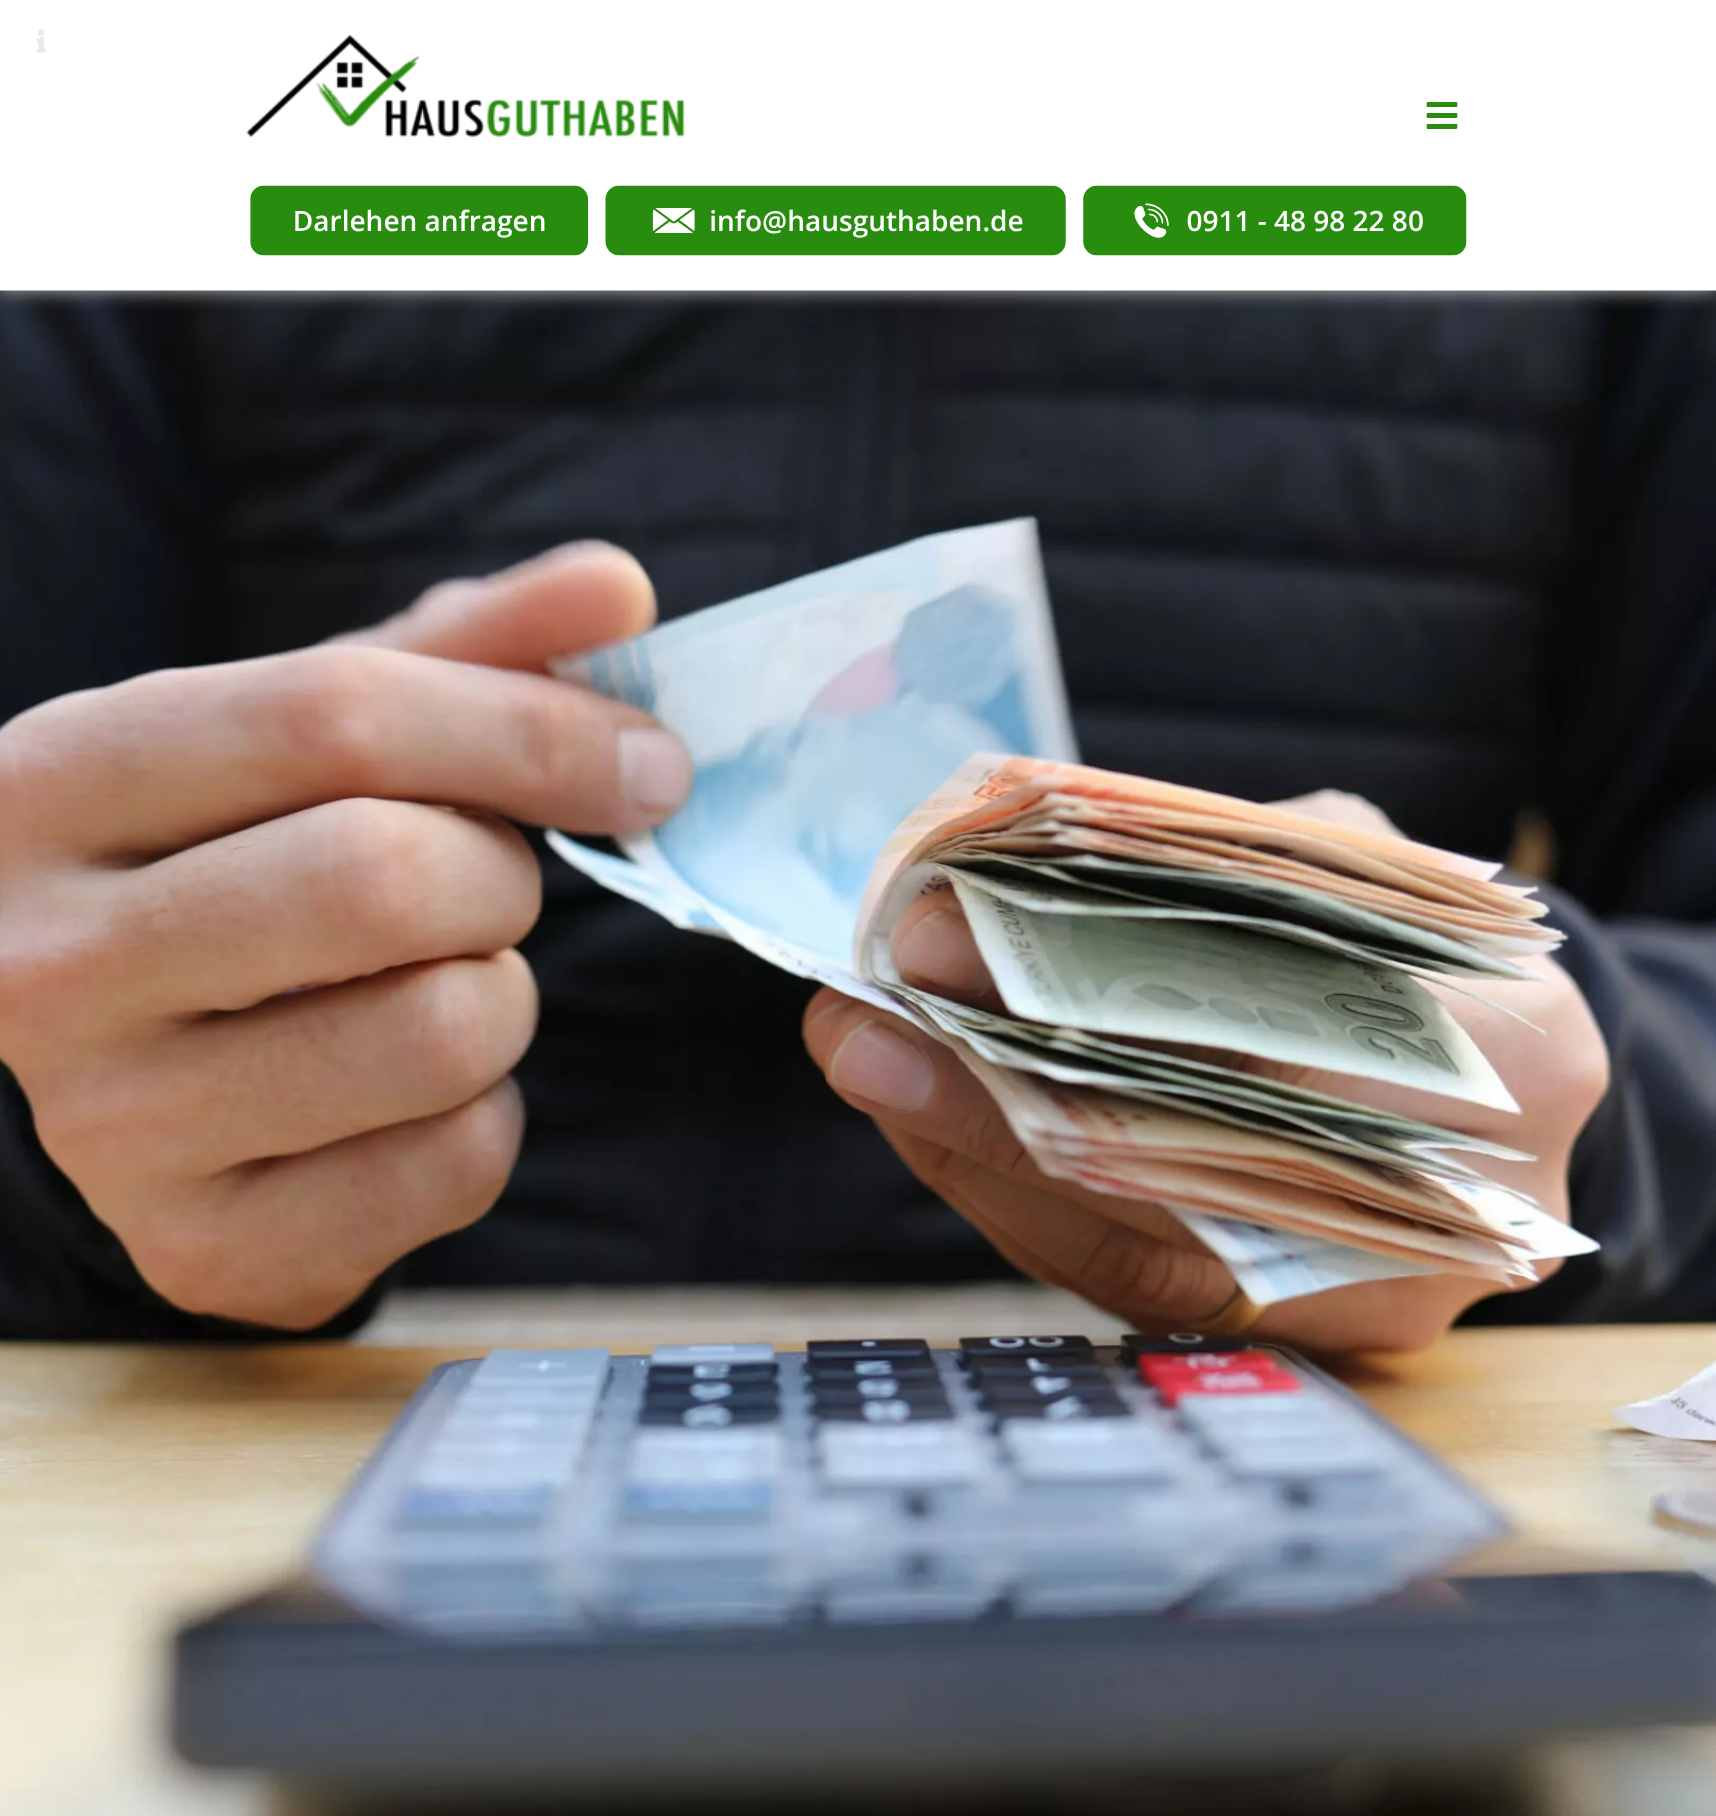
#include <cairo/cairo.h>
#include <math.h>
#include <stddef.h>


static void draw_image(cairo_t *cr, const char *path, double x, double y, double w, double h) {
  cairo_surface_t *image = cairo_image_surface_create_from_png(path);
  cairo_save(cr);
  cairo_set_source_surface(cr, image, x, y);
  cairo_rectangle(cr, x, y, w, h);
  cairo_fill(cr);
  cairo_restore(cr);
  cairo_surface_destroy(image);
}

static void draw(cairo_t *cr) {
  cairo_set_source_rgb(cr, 1, 1, 1);
  cairo_paint(cr);
  draw_image(cr, "images/2.png", 0, 35, 1716, 1781);
  draw_image(cr, "images/1.png", 36, 29, 10, 24);
}

int main(void) {
  cairo_surface_t *surface = cairo_image_surface_create(CAIRO_FORMAT_RGB24, 1716, 1816);
  cairo_t *cr = cairo_create(surface);
  cairo_font_options_t *options = cairo_font_options_create();
  cairo_font_options_set_hint_metrics(options, CAIRO_HINT_METRICS_OFF);
  cairo_font_options_set_hint_style(options, CAIRO_HINT_STYLE_NONE);
  cairo_set_font_options(cr, options);
  cairo_set_miter_limit(cr, 4);
  draw(cr);
  cairo_surface_write_to_png(surface, "out.png");
  cairo_font_options_destroy(options);
  cairo_destroy(cr);
  cairo_surface_destroy(surface);
  return 0;
}
